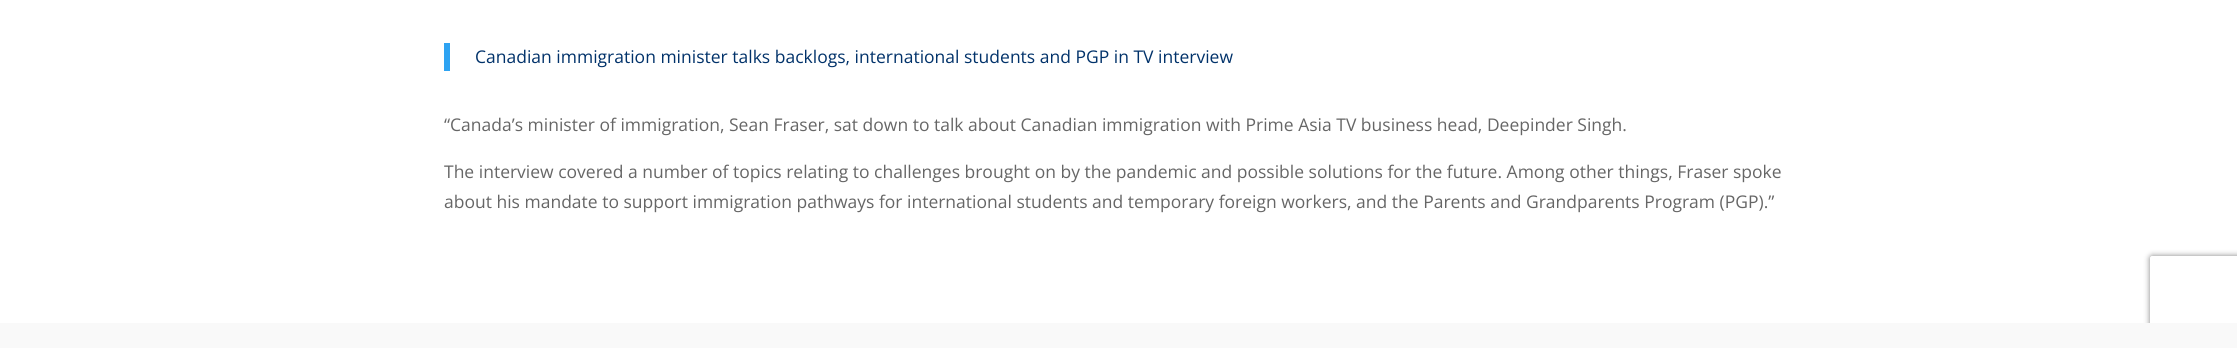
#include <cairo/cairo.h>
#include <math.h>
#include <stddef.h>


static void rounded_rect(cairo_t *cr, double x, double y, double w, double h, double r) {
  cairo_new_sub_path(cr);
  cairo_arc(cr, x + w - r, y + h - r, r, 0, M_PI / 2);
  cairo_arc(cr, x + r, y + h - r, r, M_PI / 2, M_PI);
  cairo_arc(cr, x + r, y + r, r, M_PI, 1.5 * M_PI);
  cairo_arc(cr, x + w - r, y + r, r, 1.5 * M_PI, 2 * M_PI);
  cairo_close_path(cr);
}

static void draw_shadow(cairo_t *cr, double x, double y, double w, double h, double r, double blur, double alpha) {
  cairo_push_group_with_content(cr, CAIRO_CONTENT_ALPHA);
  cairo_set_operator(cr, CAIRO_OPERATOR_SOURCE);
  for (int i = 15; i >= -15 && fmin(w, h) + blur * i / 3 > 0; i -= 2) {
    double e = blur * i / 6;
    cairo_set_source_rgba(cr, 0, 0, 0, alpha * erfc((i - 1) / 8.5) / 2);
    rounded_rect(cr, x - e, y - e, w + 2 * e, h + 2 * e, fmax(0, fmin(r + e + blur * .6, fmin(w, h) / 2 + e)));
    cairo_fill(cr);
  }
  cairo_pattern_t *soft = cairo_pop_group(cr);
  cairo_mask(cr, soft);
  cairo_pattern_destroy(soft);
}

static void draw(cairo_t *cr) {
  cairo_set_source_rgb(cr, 1, 1, 1);
  cairo_paint(cr);
  cairo_set_source_rgb(cr, 46 / 255.0, 163 / 255.0, 242 / 255.0);
  cairo_rectangle(cr, 444, 43, 6, 28);
  cairo_fill(cr);
  cairo_save(cr);
  cairo_set_fill_rule(cr, CAIRO_FILL_RULE_EVEN_ODD);
  cairo_new_path(cr);
  cairo_move_to(cr, 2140, 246);
  cairo_line_to(cr, 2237, 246);
  cairo_line_to(cr, 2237, 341);
  cairo_line_to(cr, 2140, 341);
  cairo_close_path(cr);
  cairo_move_to(cr, 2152.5, 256);
  cairo_line_to(cr, 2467.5, 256);
  cairo_curve_to(cr, 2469, 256, 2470, 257, 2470, 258.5);
  cairo_line_to(cr, 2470, 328.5);
  cairo_curve_to(cr, 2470, 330, 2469, 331, 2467.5, 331);
  cairo_line_to(cr, 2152.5, 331);
  cairo_curve_to(cr, 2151, 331, 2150, 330, 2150, 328.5);
  cairo_line_to(cr, 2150, 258.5);
  cairo_curve_to(cr, 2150, 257, 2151, 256, 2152.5, 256);
  cairo_close_path(cr);
  cairo_clip(cr);
  cairo_set_source_rgb(cr, 128 / 255.0, 128 / 255.0, 128 / 255.0);
  draw_shadow(cr, 2150, 256, 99, 75, 2.5, 3, 1);
  cairo_restore(cr);
  cairo_set_source_rgb(cr, 249 / 255.0, 249 / 255.0, 249 / 255.0);
  cairo_rectangle(cr, 0, 323, 2237, 25);
  cairo_fill(cr);
  cairo_select_font_face(cr, "Open Sans", CAIRO_FONT_SLANT_NORMAL, CAIRO_FONT_WEIGHT_NORMAL);
  cairo_set_font_size(cr, 17.5);
  cairo_set_source_rgb(cr, 1 / 255.0, 50 / 255.0, 106 / 255.0);
  cairo_move_to(cr, 475, 63);
  cairo_show_text(cr, "Canadian immigration minister talks backlogs, international students and PGP in TV interview");
  cairo_set_source_rgb(cr, 102 / 255.0, 102 / 255.0, 102 / 255.0);
  cairo_move_to(cr, 444, 131);
  cairo_show_text(cr, "“Canada’s minister of immigration, Sean Fraser, sat down to talk about Canadian immigration with Prime Asia TV business head, Deepinder Singh.");
  cairo_move_to(cr, 444, 178);
  cairo_show_text(cr, "The interview covered a number of topics relating to challenges brought on by the pandemic and possible solutions for the future. Among other things, Fraser spoke");
  cairo_move_to(cr, 444, 208);
  cairo_show_text(cr, "about his mandate to support immigration pathways for international students and temporary foreign workers, and the Parents and Grandparents Program (PGP).”");
}

int main(void) {
  cairo_surface_t *surface = cairo_image_surface_create(CAIRO_FORMAT_RGB24, 2237, 348);
  cairo_t *cr = cairo_create(surface);
  cairo_font_options_t *options = cairo_font_options_create();
  cairo_font_options_set_hint_metrics(options, CAIRO_HINT_METRICS_OFF);
  cairo_font_options_set_hint_style(options, CAIRO_HINT_STYLE_NONE);
  cairo_set_font_options(cr, options);
  cairo_set_miter_limit(cr, 4);
  draw(cr);
  cairo_surface_write_to_png(surface, "out.png");
  cairo_font_options_destroy(options);
  cairo_destroy(cr);
  cairo_surface_destroy(surface);
  return 0;
}
